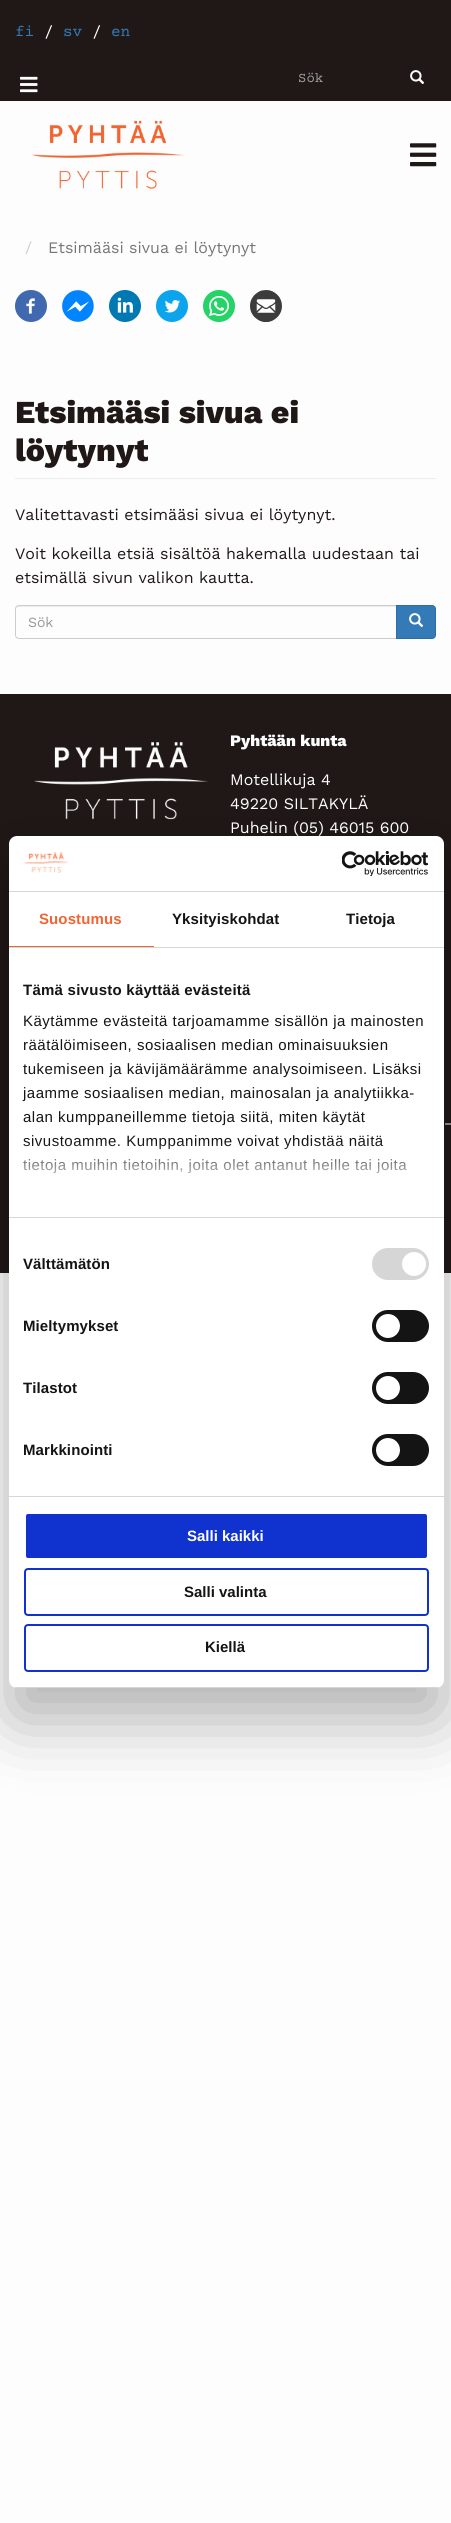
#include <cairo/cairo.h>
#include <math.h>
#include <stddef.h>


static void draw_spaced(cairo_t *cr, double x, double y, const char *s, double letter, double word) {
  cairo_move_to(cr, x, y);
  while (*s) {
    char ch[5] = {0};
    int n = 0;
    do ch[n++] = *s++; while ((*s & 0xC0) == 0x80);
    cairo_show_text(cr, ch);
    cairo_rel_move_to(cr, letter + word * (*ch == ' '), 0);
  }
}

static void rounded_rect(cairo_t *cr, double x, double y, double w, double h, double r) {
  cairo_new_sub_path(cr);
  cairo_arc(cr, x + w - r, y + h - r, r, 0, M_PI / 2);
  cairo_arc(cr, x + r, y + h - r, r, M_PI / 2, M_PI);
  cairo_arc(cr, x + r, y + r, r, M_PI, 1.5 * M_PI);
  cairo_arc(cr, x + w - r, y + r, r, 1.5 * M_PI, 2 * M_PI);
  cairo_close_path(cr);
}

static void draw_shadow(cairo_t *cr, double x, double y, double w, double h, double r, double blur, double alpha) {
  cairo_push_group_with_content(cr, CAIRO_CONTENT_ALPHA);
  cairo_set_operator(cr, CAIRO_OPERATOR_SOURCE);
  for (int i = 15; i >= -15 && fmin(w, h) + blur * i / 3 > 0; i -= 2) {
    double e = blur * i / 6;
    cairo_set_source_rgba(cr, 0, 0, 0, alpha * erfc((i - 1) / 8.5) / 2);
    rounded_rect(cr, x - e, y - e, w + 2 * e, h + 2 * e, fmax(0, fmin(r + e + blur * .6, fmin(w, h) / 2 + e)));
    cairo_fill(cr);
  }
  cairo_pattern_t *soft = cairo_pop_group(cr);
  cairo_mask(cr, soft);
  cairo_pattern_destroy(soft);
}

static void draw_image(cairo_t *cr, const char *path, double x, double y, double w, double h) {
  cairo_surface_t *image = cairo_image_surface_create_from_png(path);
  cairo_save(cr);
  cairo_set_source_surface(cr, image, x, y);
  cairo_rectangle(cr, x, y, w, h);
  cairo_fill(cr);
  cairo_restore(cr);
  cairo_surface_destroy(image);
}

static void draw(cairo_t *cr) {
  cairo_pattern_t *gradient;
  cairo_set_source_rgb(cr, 253 / 255.0, 253 / 255.0, 253 / 255.0);
  cairo_paint(cr);
  cairo_set_source_rgb(cr, 31 / 255.0, 24 / 255.0, 23 / 255.0);
  cairo_rectangle(cr, 0, 0, 451, 101);
  cairo_fill(cr);
  draw_image(cr, "images/1.png", 20, 76, 18, 17);
  draw_image(cr, "images/2.png", 410, 70, 15, 14);
  draw_image(cr, "images/3.png", 32, 120, 152, 69);
  draw_image(cr, "images/4.png", 410, 143, 27, 24);
  draw_image(cr, "images/5.png", 15, 290, 32, 32);
  draw_image(cr, "images/6.png", 62, 290, 32, 32);
  draw_image(cr, "images/7.png", 109, 290, 32, 32);
  draw_image(cr, "images/8.png", 156, 290, 32, 32);
  draw_image(cr, "images/9.png", 203, 290, 32, 32);
  draw_image(cr, "images/10.png", 250, 290, 32, 32);
  cairo_set_source_rgb(cr, 238 / 255.0, 238 / 255.0, 238 / 255.0);
  cairo_rectangle(cr, 15, 478, 421, 1);
  cairo_fill(cr);
  cairo_set_source_rgb(cr, 236 / 255.0, 236 / 255.0, 236 / 255.0);
  cairo_new_path(cr);
  cairo_move_to(cr, 19, 607);
  cairo_line_to(cr, 396, 607);
  cairo_line_to(cr, 396, 606);
  cairo_line_to(cr, 19, 606);
  cairo_curve_to(cr, 17, 606, 16, 607, 16, 609);
  cairo_line_to(cr, 16, 610);
  cairo_curve_to(cr, 16, 608, 17, 607, 19, 607);
  cairo_close_path(cr);
  cairo_fill(cr);
  cairo_new_path(cr);
  cairo_move_to(cr, 19, 605.5);
  cairo_line_to(cr, 396.5, 605.5);
  cairo_line_to(cr, 396.5, 638.5);
  cairo_line_to(cr, 19, 638.5);
  cairo_curve_to(cr, 17, 638.5, 15.5, 637, 15.5, 635);
  cairo_line_to(cr, 15.5, 609);
  cairo_curve_to(cr, 15.5, 607, 17, 605.5, 19, 605.5);
  cairo_close_path(cr);
  cairo_set_source_rgb(cr, 204 / 255.0, 204 / 255.0, 204 / 255.0);
  cairo_set_line_width(cr, 1);
  cairo_stroke(cr);
  cairo_set_source_rgb(cr, 51 / 255.0, 122 / 255.0, 183 / 255.0);
  cairo_new_path(cr);
  cairo_move_to(cr, 396.5, 605.5);
  cairo_line_to(cr, 432, 605.5);
  cairo_curve_to(cr, 434, 605.5, 435.5, 607, 435.5, 609);
  cairo_line_to(cr, 435.5, 635);
  cairo_curve_to(cr, 435.5, 637, 434, 638.5, 432, 638.5);
  cairo_line_to(cr, 396.5, 638.5);
  cairo_close_path(cr);
  cairo_fill_preserve(cr);
  cairo_set_source_rgb(cr, 46 / 255.0, 109 / 255.0, 164 / 255.0);
  cairo_stroke(cr);
  draw_image(cr, "images/11.png", 409, 613, 15, 14);
  cairo_set_source_rgb(cr, 31 / 255.0, 24 / 255.0, 23 / 255.0);
  cairo_rectangle(cr, 0, 694, 451, 579);
  cairo_fill(cr);
  draw_image(cr, "images/12.png", 34, 742, 174, 78);
  draw_image(cr, "images/13.png", 445, 1123, 6, 2);
  cairo_set_source_rgb(cr, 0, 0, 0);
  draw_shadow(cr, 9, 868, 435, 852, 8, 34, 0.3);
  cairo_set_source_rgb(cr, 1, 1, 1);
  rounded_rect(cr, 9, 836, 435, 852, 8);
  cairo_fill(cr);
  cairo_set_source_rgb(cr, 214 / 255.0, 214 / 255.0, 214 / 255.0);
  cairo_rectangle(cr, 9, 891, 435, 1);
  cairo_fill(cr);
  draw_image(cr, "images/14.png", 24, 851, 45, 22);
  draw_image(cr, "images/15.png", 342, 851, 87, 25);
  cairo_rectangle(cr, 9, 947, 435, 1);
  cairo_fill(cr);
  cairo_set_source_rgb(cr, 242 / 255.0, 100 / 255.0, 51 / 255.0);
  cairo_rectangle(cr, 9, 946, 145, 1);
  cairo_fill(cr);
  cairo_set_source_rgb(cr, 214 / 255.0, 214 / 255.0, 214 / 255.0);
  cairo_rectangle(cr, 9, 1217, 435, 1);
  cairo_fill(cr);
  cairo_rectangle(cr, 9, 1496, 435, 1);
  cairo_fill(cr);
  rounded_rect(cr, 372, 1248, 57, 32, 16);
  cairo_fill(cr);
  cairo_set_source_rgb(cr, 1, 1, 1);
  cairo_arc(cr, 414, 1264, 12, 0, 2 * M_PI);
  cairo_fill(cr);
  cairo_set_source_rgb(cr, 20 / 255.0, 20 / 255.0, 20 / 255.0);
  rounded_rect(cr, 372, 1310, 57, 32, 16);
  cairo_fill(cr);
  cairo_set_source_rgb(cr, 1, 1, 1);
  cairo_arc(cr, 388, 1326, 12, 0, 2 * M_PI);
  cairo_fill(cr);
  cairo_set_source_rgb(cr, 20 / 255.0, 20 / 255.0, 20 / 255.0);
  rounded_rect(cr, 372, 1372, 57, 32, 16);
  cairo_fill(cr);
  cairo_set_source_rgb(cr, 1, 1, 1);
  cairo_arc(cr, 388, 1388, 12, 0, 2 * M_PI);
  cairo_fill(cr);
  cairo_set_source_rgb(cr, 20 / 255.0, 20 / 255.0, 20 / 255.0);
  rounded_rect(cr, 372, 1434, 57, 32, 16);
  cairo_fill(cr);
  cairo_set_source_rgb(cr, 1, 1, 1);
  cairo_arc(cr, 388, 1450, 12, 0, 2 * M_PI);
  cairo_fill(cr);
  cairo_save(cr);
  rounded_rect(cr, 9, 836, 435, 852, 8);
  cairo_clip(cr);
  cairo_set_source_rgb(cr, 214 / 255.0, 214 / 255.0, 214 / 255.0);
  cairo_rectangle(cr, 9, 1687, 435, 1);
  cairo_fill(cr);
  cairo_restore(cr);
  cairo_set_source_rgb(cr, 16 / 255.0, 50 / 255.0, 207 / 255.0);
  rounded_rect(cr, 25, 1513, 403, 46, 3);
  cairo_fill_preserve(cr);
  cairo_set_source_rgb(cr, 1, 1, 1);
  cairo_set_line_width(cr, 2);
  cairo_stroke(cr);
  rounded_rect(cr, 25, 1569, 403, 46, 3);
  cairo_set_source_rgb(cr, 16 / 255.0, 50 / 255.0, 207 / 255.0);
  cairo_stroke(cr);
  rounded_rect(cr, 25, 1625, 403, 46, 3);
  cairo_stroke(cr);
  cairo_select_font_face(cr, "Courier Prime", CAIRO_FONT_SLANT_NORMAL, CAIRO_FONT_WEIGHT_NORMAL);
  cairo_set_font_size(cr, 16);
  cairo_set_source_rgb(cr, 51 / 255.0, 122 / 255.0, 183 / 255.0);
  cairo_move_to(cr, 15, 36);
  cairo_show_text(cr, "fi");
  cairo_set_source_rgb(cr, 253 / 255.0, 253 / 255.0, 253 / 255.0);
  cairo_move_to(cr, 44, 36);
  cairo_show_text(cr, "/");
  cairo_set_source_rgb(cr, 51 / 255.0, 122 / 255.0, 183 / 255.0);
  cairo_move_to(cr, 63, 36);
  cairo_show_text(cr, "sv");
  cairo_set_source_rgb(cr, 253 / 255.0, 253 / 255.0, 253 / 255.0);
  cairo_move_to(cr, 92, 36);
  cairo_show_text(cr, "/");
  cairo_set_source_rgb(cr, 51 / 255.0, 122 / 255.0, 183 / 255.0);
  cairo_move_to(cr, 111, 36);
  cairo_show_text(cr, "en");
  cairo_set_font_size(cr, 14);
  cairo_set_source_rgb(cr, 153 / 255.0, 153 / 255.0, 153 / 255.0);
  cairo_move_to(cr, 298, 82);
  cairo_show_text(cr, "Sök");
  cairo_select_font_face(cr, "Work Sans", CAIRO_FONT_SLANT_NORMAL, CAIRO_FONT_WEIGHT_NORMAL);
  cairo_set_font_size(cr, 16);
  cairo_set_source_rgb(cr, 204 / 255.0, 204 / 255.0, 204 / 255.0);
  cairo_move_to(cr, 25, 253);
  cairo_show_text(cr, "/");
  cairo_set_source_rgb(cr, 119 / 255.0, 119 / 255.0, 119 / 255.0);
  cairo_move_to(cr, 48, 253);
  cairo_show_text(cr, "Etsimääsi sivua ei löytynyt");
  cairo_select_font_face(cr, "Work Sans ExtraBold", CAIRO_FONT_SLANT_NORMAL, CAIRO_FONT_WEIGHT_NORMAL);
  cairo_set_font_size(cr, 32);
  cairo_set_source_rgb(cr, 31 / 255.0, 24 / 255.0, 23 / 255.0);
  cairo_move_to(cr, 15, 423);
  cairo_show_text(cr, "Etsimääsi sivua ei");
  cairo_move_to(cr, 15, 461);
  cairo_show_text(cr, "löytynyt");
  cairo_select_font_face(cr, "Work Sans", CAIRO_FONT_SLANT_NORMAL, CAIRO_FONT_WEIGHT_NORMAL);
  cairo_set_font_size(cr, 16);
  cairo_move_to(cr, 15, 520);
  cairo_show_text(cr, "Valitettavasti etsimääsi sivua ei löytynyt.");
  cairo_move_to(cr, 15, 559);
  cairo_show_text(cr, "Voit kokeilla etsiä sisältöä hakemalla uudestaan tai");
  cairo_move_to(cr, 15, 583);
  cairo_show_text(cr, "etsimällä sivun valikon kautta.");
  cairo_set_font_size(cr, 14);
  cairo_set_source_rgb(cr, 153 / 255.0, 153 / 255.0, 153 / 255.0);
  cairo_move_to(cr, 28, 627);
  cairo_show_text(cr, "Sök");
  cairo_select_font_face(cr, "Work Sans ExtraBold", CAIRO_FONT_SLANT_NORMAL, CAIRO_FONT_WEIGHT_NORMAL);
  cairo_set_font_size(cr, 16);
  cairo_set_source_rgb(cr, 253 / 255.0, 253 / 255.0, 253 / 255.0);
  cairo_move_to(cr, 230, 746);
  cairo_show_text(cr, "Pyhtään kunta");
  cairo_select_font_face(cr, "Work Sans", CAIRO_FONT_SLANT_NORMAL, CAIRO_FONT_WEIGHT_NORMAL);
  cairo_move_to(cr, 230, 785);
  cairo_show_text(cr, "Motellikuja 4");
  cairo_move_to(cr, 230, 809);
  cairo_show_text(cr, "49220 SILTAKYLÄ");
  cairo_move_to(cr, 230, 833);
  cairo_show_text(cr, "Puhelin (05) 46015 600");
  cairo_select_font_face(cr, "Liberation Sans", CAIRO_FONT_SLANT_NORMAL, CAIRO_FONT_WEIGHT_BOLD);
  cairo_set_font_size(cr, 15);
  cairo_set_source_rgb(cr, 242 / 255.0, 100 / 255.0, 51 / 255.0);
  draw_spaced(cr, 39, 924, "Suostumus", 0.1, 0);
  cairo_set_source_rgb(cr, 20 / 255.0, 20 / 255.0, 20 / 255.0);
  draw_spaced(cr, 172, 924, "Yksityiskohdat", 0.1, 0);
  draw_spaced(cr, 346, 924, "Tietoja", 0.1, 0);
  draw_spaced(cr, 23, 995, "Tämä sivusto käyttää evästeitä", 0.25, 0);
  cairo_select_font_face(cr, "Liberation Sans", CAIRO_FONT_SLANT_NORMAL, CAIRO_FONT_WEIGHT_NORMAL);
  draw_spaced(cr, 23, 1026, "Käytämme evästeitä tarjoamamme sisällön ja mainosten", 0.5, 0);
  draw_spaced(cr, 23, 1050, "räätälöimiseen, sosiaalisen median ominaisuuksien", 0.5, 0);
  draw_spaced(cr, 23, 1074, "tukemiseen ja kävijämäärämme analysoimiseen. Lisäksi", 0.5, 0);
  draw_spaced(cr, 23, 1098, "jaamme sosiaalisen median, mainosalan ja analytiikka-", 0.5, 0);
  draw_spaced(cr, 23, 1122, "alan kumppaneillemme tietoja siitä, miten käytät", 0.5, 0);
  draw_spaced(cr, 23, 1146, "sivustoamme. Kumppanimme voivat yhdistää näitä", 0.5, 0);
  draw_spaced(cr, 23, 1170, "tietoja muihin tietoihin, joita olet antanut heille tai joita", 0.5, 0);
  gradient = cairo_pattern_create_linear(220, 1217, 220, 1142);
  cairo_pattern_add_color_stop_rgba(gradient, 0, 1, 1, 1, 1);
  cairo_pattern_add_color_stop_rgba(gradient, 0.5, 1, 1, 1, 0.8);
  cairo_pattern_add_color_stop_rgba(gradient, 1, 1, 1, 1, 0);
  cairo_set_source(cr, gradient);
  cairo_pattern_destroy(gradient);
  cairo_rectangle(cr, 23, 1143, 384, 31);
  cairo_fill(cr);
  cairo_select_font_face(cr, "Liberation Sans", CAIRO_FONT_SLANT_NORMAL, CAIRO_FONT_WEIGHT_BOLD);
  cairo_set_source_rgb(cr, 20 / 255.0, 20 / 255.0, 20 / 255.0);
  draw_spaced(cr, 23, 1269, "Välttämätön", 0.1, 0);
  draw_spaced(cr, 23, 1331, "Mieltymykset", 0.1, 0);
  draw_spaced(cr, 23, 1393, "Tilastot", 0.1, 0);
  draw_spaced(cr, 23, 1455, "Markkinointi", 0.1, 0);
  cairo_set_source_rgb(cr, 253 / 255.0, 253 / 255.0, 253 / 255.0);
  cairo_move_to(cr, 187, 1541);
  cairo_show_text(cr, "Salli kaikki");
  cairo_set_source_rgb(cr, 20 / 255.0, 20 / 255.0, 20 / 255.0);
  cairo_move_to(cr, 184, 1597);
  cairo_show_text(cr, "Salli valinta");
  cairo_move_to(cr, 205, 1652);
  cairo_show_text(cr, "Kiellä");
}

int main(void) {
  cairo_surface_t *surface = cairo_image_surface_create(CAIRO_FORMAT_RGB24, 451, 2523);
  cairo_t *cr = cairo_create(surface);
  cairo_font_options_t *options = cairo_font_options_create();
  cairo_font_options_set_hint_metrics(options, CAIRO_HINT_METRICS_OFF);
  cairo_font_options_set_hint_style(options, CAIRO_HINT_STYLE_NONE);
  cairo_set_font_options(cr, options);
  cairo_set_miter_limit(cr, 4);
  draw(cr);
  cairo_surface_write_to_png(surface, "out.png");
  cairo_font_options_destroy(options);
  cairo_destroy(cr);
  cairo_surface_destroy(surface);
  return 0;
}
